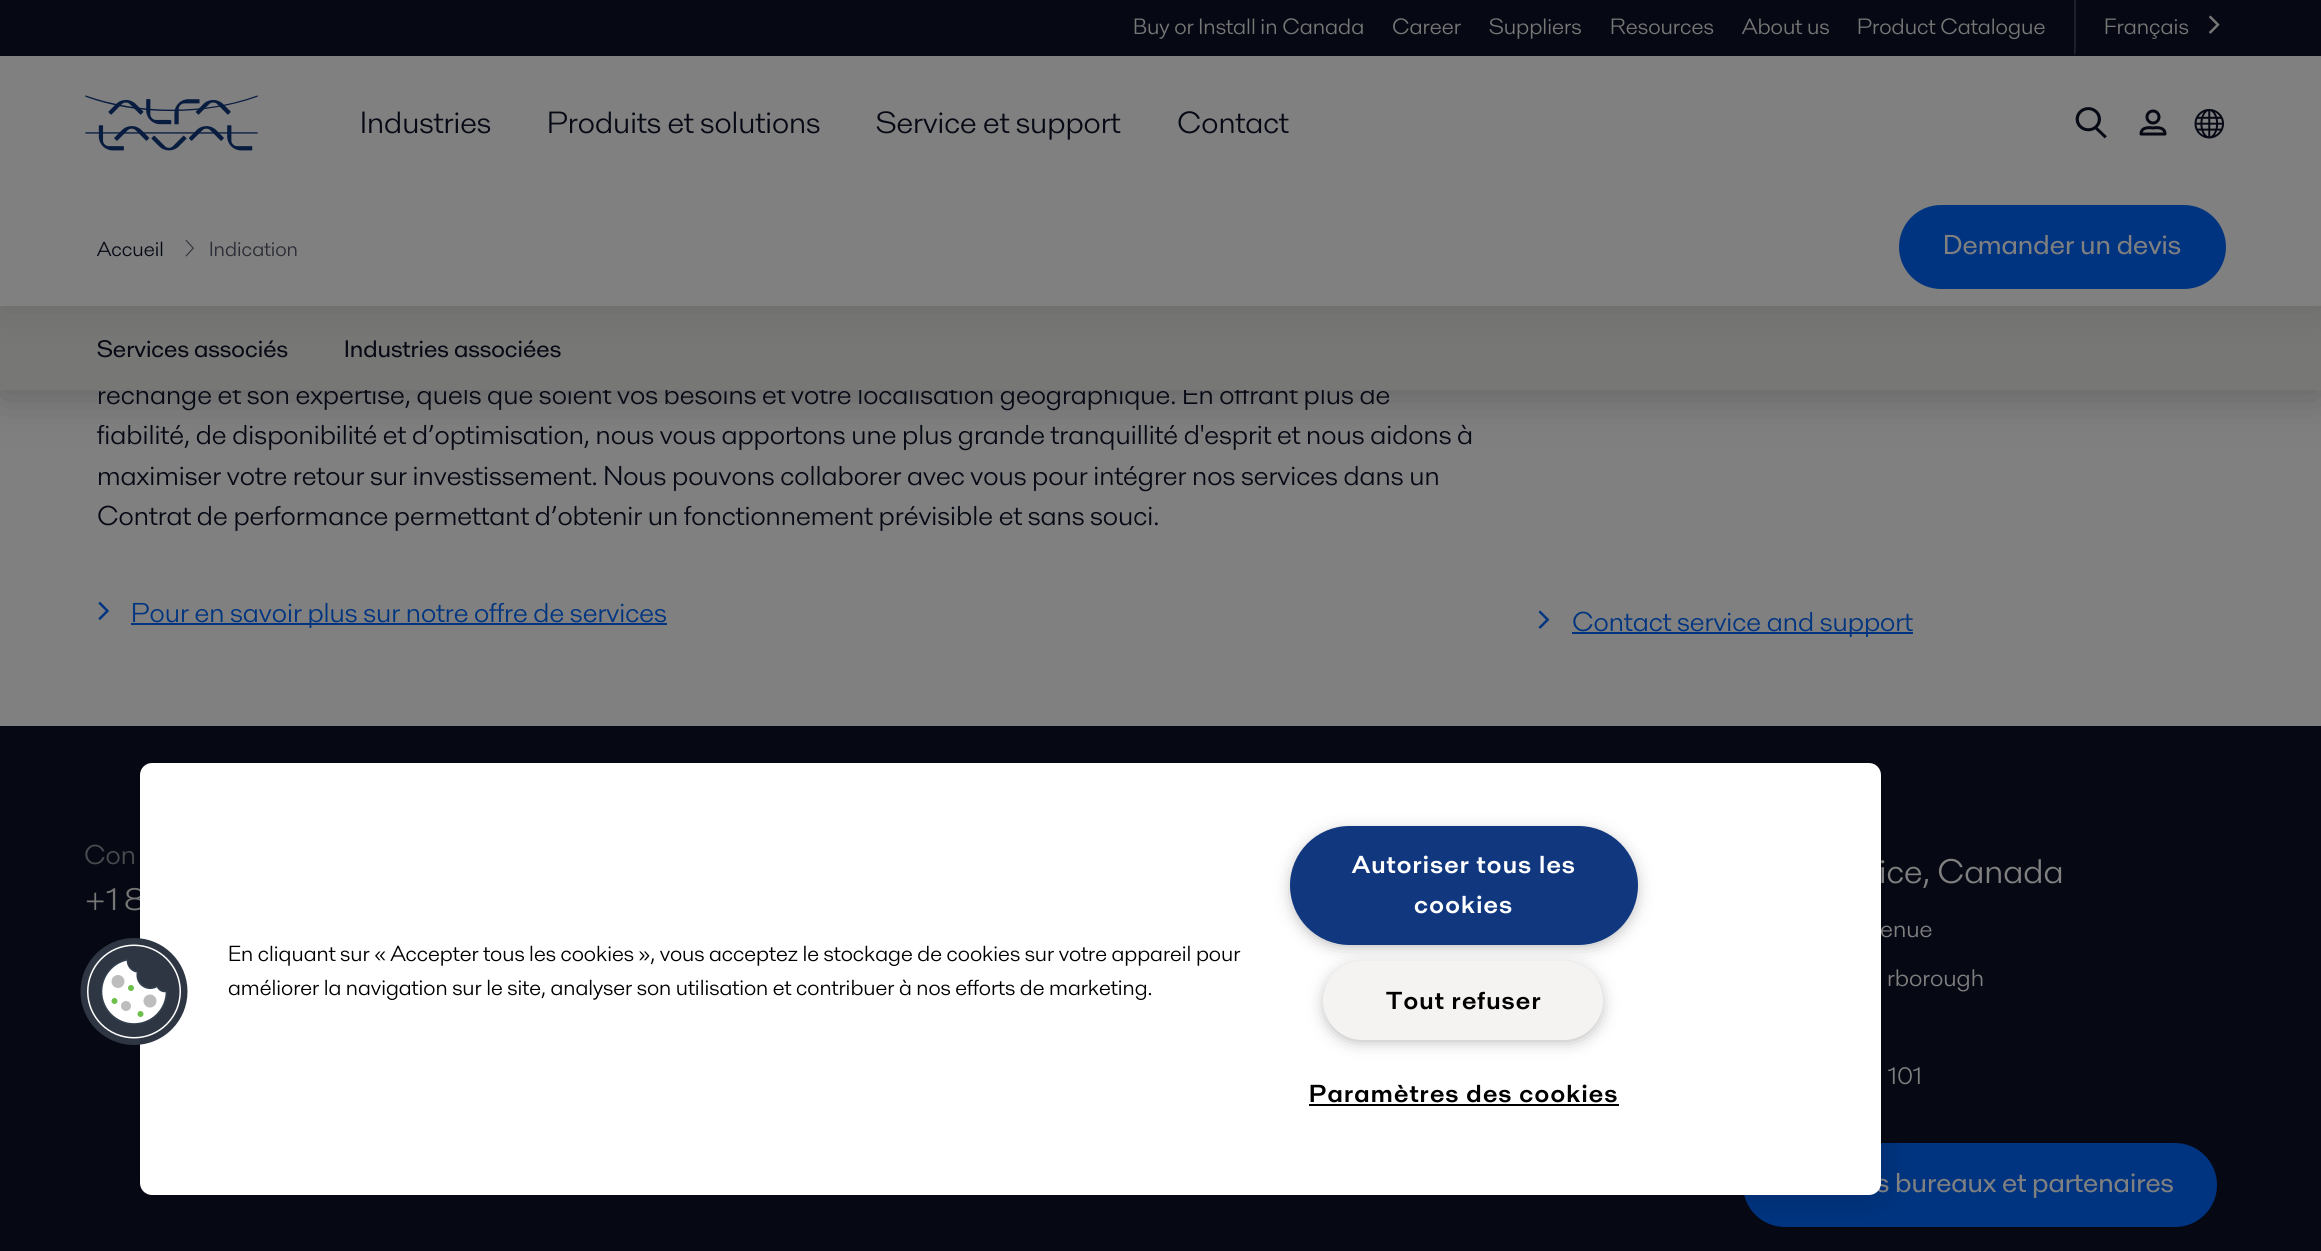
#include <cairo/cairo.h>
#include <math.h>
#include <stddef.h>


static void draw_spaced(cairo_t *cr, double x, double y, const char *s, double letter, double word) {
  cairo_move_to(cr, x, y);
  while (*s) {
    char ch[5] = {0};
    int n = 0;
    do ch[n++] = *s++; while ((*s & 0xC0) == 0x80);
    cairo_show_text(cr, ch);
    cairo_rel_move_to(cr, letter + word * (*ch == ' '), 0);
  }
}

static void rounded_rect(cairo_t *cr, double x, double y, double w, double h, double r) {
  cairo_new_sub_path(cr);
  cairo_arc(cr, x + w - r, y + h - r, r, 0, M_PI / 2);
  cairo_arc(cr, x + r, y + h - r, r, M_PI / 2, M_PI);
  cairo_arc(cr, x + r, y + r, r, M_PI, 1.5 * M_PI);
  cairo_arc(cr, x + w - r, y + r, r, 1.5 * M_PI, 2 * M_PI);
  cairo_close_path(cr);
}

static void draw_shadow(cairo_t *cr, double x, double y, double w, double h, double r, double blur, double alpha) {
  cairo_push_group_with_content(cr, CAIRO_CONTENT_ALPHA);
  cairo_set_operator(cr, CAIRO_OPERATOR_SOURCE);
  for (int i = 15; i >= -15 && fmin(w, h) + blur * i / 3 > 0; i -= 2) {
    double e = blur * i / 6;
    cairo_set_source_rgba(cr, 0, 0, 0, alpha * erfc((i - 1) / 8.5) / 2);
    rounded_rect(cr, x - e, y - e, w + 2 * e, h + 2 * e, fmax(0, fmin(r + e + blur * .6, fmin(w, h) / 2 + e)));
    cairo_fill(cr);
  }
  cairo_pattern_t *soft = cairo_pop_group(cr);
  cairo_mask(cr, soft);
  cairo_pattern_destroy(soft);
}

static void draw_image(cairo_t *cr, const char *path, double x, double y, double w, double h) {
  cairo_surface_t *image = cairo_image_surface_create_from_png(path);
  cairo_save(cr);
  cairo_set_source_surface(cr, image, x, y);
  cairo_rectangle(cr, x, y, w, h);
  cairo_fill(cr);
  cairo_restore(cr);
  cairo_surface_destroy(image);
}

static void draw(cairo_t *cr) {
  cairo_set_source_rgb(cr, 128 / 255.0, 128 / 255.0, 128 / 255.0);
  cairo_paint(cr);
  cairo_set_source_rgb(cr, 0, 0, 0);
  draw_shadow(cr, 0, 315, 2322, 84, 0, 22, 0.2);
  draw_image(cr, "images/6.png", 98, 601, 11, 19);
  cairo_set_source_rgb(cr, 0, 52 / 255.0, 128 / 255.0);
  cairo_rectangle(cr, 131, 623, 536, 2);
  cairo_fill(cr);
  draw_image(cr, "images/7.png", 1538, 610, 12, 19);
  cairo_rectangle(cr, 1572, 632, 341, 2);
  cairo_fill(cr);
  cairo_set_source_rgb(cr, 6 / 255.0, 9 / 255.0, 20 / 255.0);
  cairo_rectangle(cr, 0, 726, 2321, 525);
  cairo_fill(cr);
  cairo_set_source_rgb(cr, 0, 52 / 255.0, 128 / 255.0);
  rounded_rect(cr, 1744, 1144, 472, 82, 41);
  cairo_fill_preserve(cr);
  cairo_stroke(cr);
  cairo_set_source_rgb(cr, 0, 0, 0);
  draw_shadow(cr, 140, 763, 1741, 432, 12, 16, 0.2);
  cairo_select_font_face(cr, "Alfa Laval", CAIRO_FONT_SLANT_NORMAL, CAIRO_FONT_WEIGHT_NORMAL);
  cairo_set_font_size(cr, 28);
  cairo_set_source_rgb(cr, 6 / 255.0, 9 / 255.0, 20 / 255.0);
  cairo_move_to(cr, 97, 404);
  cairo_show_text(cr, "rechange et son expertise, quels que soient vos besoins et votre localisation géographique. En offrant plus de");
  cairo_set_source_rgb(cr, 119 / 255.0, 119 / 255.0, 118 / 255.0);
  cairo_rectangle(cr, 0, 306, 2321, 84);
  cairo_fill(cr);
  cairo_set_source_rgb(cr, 0, 0, 0);
  draw_shadow(cr, 0, 4, 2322, 306, 0, 22, 0.1);
  cairo_set_source_rgb(cr, 128 / 255.0, 128 / 255.0, 128 / 255.0);
  cairo_rectangle(cr, 0, 56, 2321, 250);
  cairo_fill(cr);
  cairo_set_source_rgb(cr, 0, 52 / 255.0, 128 / 255.0);
  rounded_rect(cr, 1900, 206, 325, 82, 41);
  cairo_fill_preserve(cr);
  cairo_stroke(cr);
  cairo_select_font_face(cr, "Alfa Laval Medium", CAIRO_FONT_SLANT_NORMAL, CAIRO_FONT_WEIGHT_NORMAL);
  cairo_set_source_rgb(cr, 128 / 255.0, 128 / 255.0, 128 / 255.0);
  cairo_move_to(cr, 1943, 254);
  cairo_show_text(cr, "Demander un devis");
  draw_image(cr, "images/5.png", 185, 239, 9, 18);
  cairo_select_font_face(cr, "Alfa Laval", CAIRO_FONT_SLANT_NORMAL, CAIRO_FONT_WEIGHT_NORMAL);
  cairo_set_font_size(cr, 21);
  cairo_set_source_rgb(cr, 42 / 255.0, 44 / 255.0, 53 / 255.0);
  cairo_move_to(cr, 209, 256);
  cairo_show_text(cr, "Indication");
  cairo_set_source_rgb(cr, 6 / 255.0, 9 / 255.0, 20 / 255.0);
  cairo_move_to(cr, 97, 256);
  cairo_show_text(cr, "Accueil");
  draw_image(cr, "images/4.png", 2194, 108, 30, 31);
  cairo_new_path(cr);
  cairo_move_to(cr, 2153, 128);
  cairo_curve_to(cr, 2153, 128, 2141, 125.5, 2141, 134);
  cairo_line_to(cr, 2165, 134);
  cairo_curve_to(cr, 2165, 125.5, 2153, 128, 2153, 128);
  cairo_close_path(cr);
  cairo_set_line_width(cr, 3);
  cairo_set_line_cap(cr, CAIRO_LINE_CAP_ROUND);
  cairo_set_line_join(cr, CAIRO_LINE_JOIN_ROUND);
  cairo_stroke(cr);
  cairo_arc(cr, 2153, 117, 6, 0, 2 * M_PI);
  cairo_set_line_cap(cr, CAIRO_LINE_CAP_BUTT);
  cairo_set_line_join(cr, CAIRO_LINE_JOIN_MITER);
  cairo_stroke(cr);
  draw_image(cr, "images/3.png", 2075, 107, 32, 32);
  cairo_set_font_size(cr, 31.5);
  cairo_move_to(cr, 1177, 133);
  cairo_show_text(cr, "Contact");
  cairo_move_to(cr, 876, 133);
  cairo_show_text(cr, "Service et support");
  cairo_move_to(cr, 547, 133);
  cairo_show_text(cr, "Produits et solutions");
  cairo_move_to(cr, 360, 133);
  cairo_show_text(cr, "Industries");
  cairo_rectangle(cr, 0, 0, 2321, 56);
  cairo_fill(cr);
  draw_image(cr, "images/1.png", 2209, 15, 11, 19);
  cairo_set_font_size(cr, 22.75);
  cairo_set_source_rgb(cr, 119 / 255.0, 119 / 255.0, 118 / 255.0);
  cairo_move_to(cr, 2104, 34);
  cairo_show_text(cr, "Français");
  cairo_set_source_rgb(cr, 30 / 255.0, 33 / 255.0, 42 / 255.0);
  cairo_new_path(cr);
  cairo_move_to(cr, 2074, 56);
  cairo_line_to(cr, 2074, 0);
  cairo_line_to(cr, 2076, 0);
  cairo_line_to(cr, 2076, 52);
  cairo_close_path(cr);
  cairo_fill(cr);
  cairo_set_source_rgb(cr, 119 / 255.0, 119 / 255.0, 118 / 255.0);
  cairo_move_to(cr, 1857, 34);
  cairo_show_text(cr, "Product Catalogue");
  cairo_move_to(cr, 1742, 34);
  cairo_show_text(cr, "About us");
  cairo_move_to(cr, 1610, 34);
  cairo_show_text(cr, "Resources");
  cairo_move_to(cr, 1489, 34);
  cairo_show_text(cr, "Suppliers");
  cairo_move_to(cr, 1392, 34);
  cairo_show_text(cr, "Career");
  cairo_move_to(cr, 1133, 34);
  cairo_show_text(cr, "Buy or Install in Canada");
  draw_image(cr, "images/2.png", 85, 95, 173, 56);
  cairo_select_font_face(cr, "Alfa Laval Medium", CAIRO_FONT_SLANT_NORMAL, CAIRO_FONT_WEIGHT_NORMAL);
  cairo_set_font_size(cr, 24.5);
  cairo_set_source_rgb(cr, 6 / 255.0, 9 / 255.0, 20 / 255.0);
  cairo_move_to(cr, 344, 357);
  cairo_show_text(cr, "Industries associées");
  cairo_move_to(cr, 97, 357);
  cairo_show_text(cr, "Services associés");
  cairo_select_font_face(cr, "Alfa Laval", CAIRO_FONT_SLANT_NORMAL, CAIRO_FONT_WEIGHT_NORMAL);
  cairo_set_font_size(cr, 28);
  cairo_move_to(cr, 97, 444);
  cairo_show_text(cr, "fiabilité, de disponibilité et d’optimisation, nous vous apportons une plus grande tranquillité d'esprit et nous aidons à");
  cairo_move_to(cr, 97, 485);
  cairo_show_text(cr, "maximiser votre retour sur investissement. Nous pouvons collaborer avec vous pour intégrer nos services dans un");
  cairo_move_to(cr, 97, 525);
  cairo_show_text(cr, "Contrat de performance permettant d’obtenir un fonctionnement prévisible et sans souci.");
  cairo_set_source_rgb(cr, 0, 52 / 255.0, 128 / 255.0);
  cairo_move_to(cr, 131, 622);
  cairo_show_text(cr, "Pour en savoir plus sur notre offre de services");
  cairo_move_to(cr, 1572, 631);
  cairo_show_text(cr, "Contact service and support");
  cairo_set_source_rgb(cr, 74 / 255.0, 75 / 255.0, 79 / 255.0);
  cairo_move_to(cr, 84, 864);
  cairo_show_text(cr, "Con");
  cairo_set_font_size(cr, 32);
  cairo_set_source_rgb(cr, 119 / 255.0, 119 / 255.0, 118 / 255.0);
  cairo_move_to(cr, 84, 910);
  cairo_show_text(cr, "+1 8");
  cairo_set_font_size(cr, 35);
  cairo_set_source_rgb(cr, 128 / 255.0, 128 / 255.0, 128 / 255.0);
  cairo_move_to(cr, 1879, 883);
  cairo_show_text(cr, "ice, Canada");
  cairo_set_font_size(cr, 24.5);
  cairo_move_to(cr, 1880, 937);
  cairo_show_text(cr, "enue");
  cairo_move_to(cr, 1887, 986);
  cairo_show_text(cr, "rborough");
  cairo_move_to(cr, 1888, 1084);
  cairo_show_text(cr, "101");
  cairo_select_font_face(cr, "Alfa Laval Medium", CAIRO_FONT_SLANT_NORMAL, CAIRO_FONT_WEIGHT_NORMAL);
  cairo_set_font_size(cr, 28);
  cairo_move_to(cr, 1876, 1192);
  cairo_show_text(cr, "s bureaux et partenaires");
  cairo_set_source_rgb(cr, 1, 1, 1);
  rounded_rect(cr, 140, 763, 1741, 432, 12);
  cairo_fill(cr);
  draw_image(cr, "images/8.png", 80, 938, 108, 107);
  cairo_select_font_face(cr, "Alfa Laval", CAIRO_FONT_SLANT_NORMAL, CAIRO_FONT_WEIGHT_NORMAL);
  cairo_set_font_size(cr, 22.4);
  cairo_set_source_rgb(cr, 0, 0, 0);
  cairo_move_to(cr, 228, 961);
  cairo_show_text(cr, "En cliquant sur « Accepter tous les cookies », vous acceptez le stockage de cookies sur votre appareil pour");
  cairo_move_to(cr, 228, 995);
  cairo_show_text(cr, "améliorer la navigation sur le site, analyser son utilisation et contribuer à nos efforts de marketing.");
  cairo_set_source_rgb(cr, 153 / 255.0, 153 / 255.0, 153 / 255.0);
  draw_shadow(cr, 1295, 835, 338, 108, 54, 9, 1);
  cairo_set_source_rgb(cr, 17 / 255.0, 56 / 255.0, 127 / 255.0);
  rounded_rect(cr, 1291, 827, 346, 117, 58.5);
  cairo_fill_preserve(cr);
  cairo_set_line_width(cr, 2);
  cairo_stroke(cr);
  cairo_select_font_face(cr, "Alfa Laval", CAIRO_FONT_SLANT_NORMAL, CAIRO_FONT_WEIGHT_BOLD);
  cairo_set_font_size(cr, 25.25);
  cairo_set_source_rgb(cr, 1, 1, 1);
  draw_spaced(cr, 1352, 873, "Autoriser tous les", 1.25, 0);
  draw_spaced(cr, 1414, 913, "cookies", 1.25, 0);
  cairo_set_source_rgb(cr, 153 / 255.0, 153 / 255.0, 153 / 255.0);
  draw_shadow(cr, 1328, 970, 270, 68, 34, 9, 1);
  cairo_set_source_rgb(cr, 245 / 255.0, 243 / 255.0, 242 / 255.0);
  rounded_rect(cr, 1324, 962, 278, 77, 38.5);
  cairo_fill_preserve(cr);
  cairo_stroke(cr);
  cairo_set_source_rgb(cr, 0, 0, 0);
  draw_spaced(cr, 1386, 1009, "Tout refuser", 1.25, 0);
  draw_spaced(cr, 1309, 1102, "Paramètres des cookies", 1.25, 0);
  cairo_rectangle(cr, 1309, 1104, 310, 2);
  cairo_fill(cr);
}

int main(void) {
  cairo_surface_t *surface = cairo_image_surface_create(CAIRO_FORMAT_RGB24, 2321, 1251);
  cairo_t *cr = cairo_create(surface);
  cairo_font_options_t *options = cairo_font_options_create();
  cairo_font_options_set_hint_metrics(options, CAIRO_HINT_METRICS_OFF);
  cairo_font_options_set_hint_style(options, CAIRO_HINT_STYLE_NONE);
  cairo_set_font_options(cr, options);
  cairo_set_miter_limit(cr, 4);
  draw(cr);
  cairo_surface_write_to_png(surface, "out.png");
  cairo_font_options_destroy(options);
  cairo_destroy(cr);
  cairo_surface_destroy(surface);
  return 0;
}
